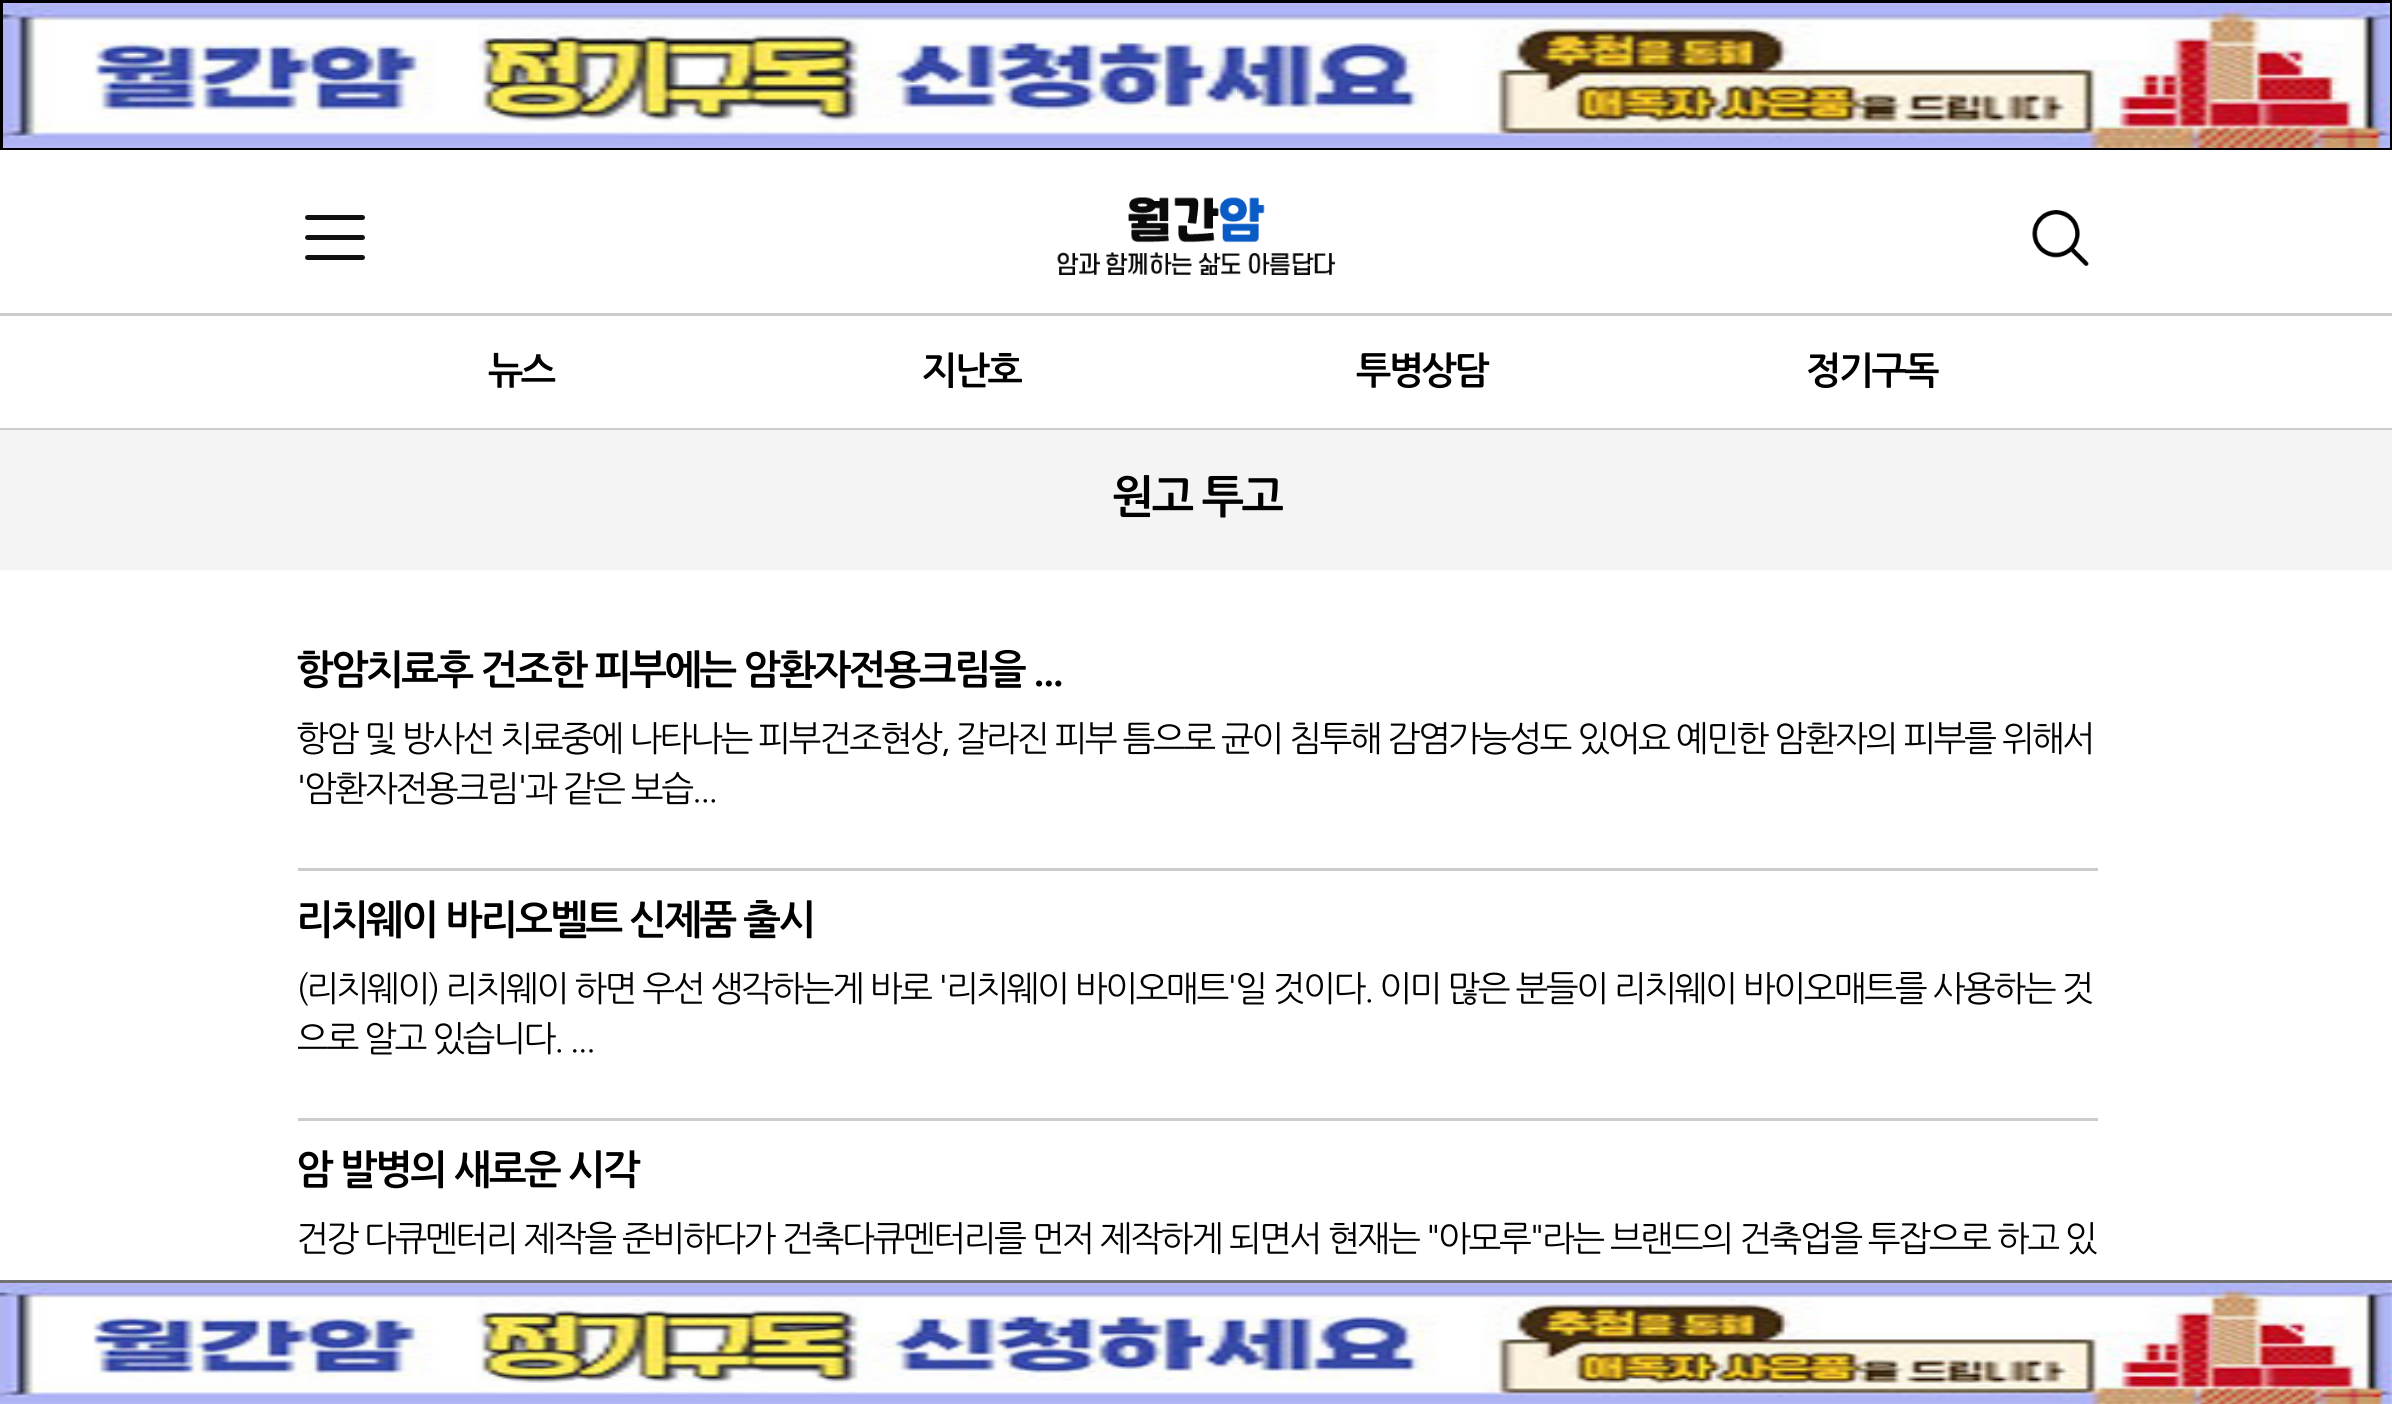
#include <cairo/cairo.h>
#include <math.h>
#include <stddef.h>


static void draw_spaced(cairo_t *cr, double x, double y, const char *s, double letter, double word) {
  cairo_move_to(cr, x, y);
  while (*s) {
    char ch[5] = {0};
    int n = 0;
    do ch[n++] = *s++; while ((*s & 0xC0) == 0x80);
    cairo_show_text(cr, ch);
    cairo_rel_move_to(cr, letter + word * (*ch == ' '), 0);
  }
}

static void draw_image(cairo_t *cr, const char *path, double x, double y, double w, double h) {
  cairo_surface_t *image = cairo_image_surface_create_from_png(path);
  cairo_save(cr);
  cairo_set_source_surface(cr, image, x, y);
  cairo_rectangle(cr, x, y, w, h);
  cairo_fill(cr);
  cairo_restore(cr);
  cairo_surface_destroy(image);
}

static void draw(cairo_t *cr) {
  cairo_set_source_rgb(cr, 1, 1, 1);
  cairo_paint(cr);
  cairo_rectangle(cr, 1.5, 1.5, 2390, 147);
  cairo_set_source_rgb(cr, 0, 0, 0);
  cairo_set_line_width(cr, 3);
  cairo_stroke(cr);
  draw_image(cr, "images/1.png", 3, 3, 2387, 145);
  cairo_set_source_rgb(cr, 204 / 255.0, 204 / 255.0, 204 / 255.0);
  cairo_rectangle(cr, 0, 313, 2392, 3);
  cairo_fill(cr);
  draw_image(cr, "images/2.png", 305, 215, 60, 45);
  draw_image(cr, "images/3.png", 1057, 197, 278, 78);
  draw_image(cr, "images/4.png", 2032, 210, 57, 56);
  cairo_rectangle(cr, 0, 428, 2392, 2);
  cairo_fill(cr);
  cairo_set_source_rgb(cr, 244 / 255.0, 244 / 255.0, 244 / 255.0);
  cairo_rectangle(cr, 0, 430, 2392, 140);
  cairo_fill(cr);
  cairo_set_source_rgb(cr, 204 / 255.0, 204 / 255.0, 204 / 255.0);
  cairo_rectangle(cr, 298, 868, 1800, 3);
  cairo_fill(cr);
  cairo_rectangle(cr, 298, 1118, 1800, 3);
  cairo_fill(cr);
  cairo_set_source_rgb(cr, 113 / 255.0, 113 / 255.0, 113 / 255.0);
  cairo_rectangle(cr, 0, 1280, 2392, 3);
  cairo_fill(cr);
  draw_image(cr, "images/5.png", 0, 1283, 2392, 121);
  cairo_select_font_face(cr, "NanumGothic", CAIRO_FONT_SLANT_NORMAL, CAIRO_FONT_WEIGHT_BOLD);
  cairo_set_font_size(cr, 37.5);
  cairo_set_source_rgb(cr, 0, 0, 0);
  draw_spaced(cr, 488, 384, "뉴스", -2.5, 0);
  draw_spaced(cr, 922, 384, "지난호", -2.5, 0);
  draw_spaced(cr, 1356, 384, "투병상담", -2.5, 0);
  draw_spaced(cr, 1806, 384, "정기구독", -2.5, 0);
  cairo_set_font_size(cr, 45);
  draw_spaced(cr, 1112, 513, "원고 투고", -2.5, 0);
  cairo_set_font_size(cr, 40);
  draw_spaced(cr, 296, 684, "항암치료후 건조한 피부에는 암환자전용크림을 ...", -2.5, 0);
  cairo_select_font_face(cr, "NanumGothic", CAIRO_FONT_SLANT_NORMAL, CAIRO_FONT_WEIGHT_NORMAL);
  cairo_set_font_size(cr, 35);
  draw_spaced(cr, 296, 751, "항암 및 방사선 치료중에 나타나는 피부건조현상, 갈라진 피부 틈으로 균이 침투해 감염가능성도 있어요 예민한 암환자의 피부를 위해서", -2.5, 0);
  draw_spaced(cr, 296, 801, "'암환자전용크림'과 같은 보습...", -2.5, 0);
  cairo_select_font_face(cr, "NanumGothic", CAIRO_FONT_SLANT_NORMAL, CAIRO_FONT_WEIGHT_BOLD);
  cairo_set_font_size(cr, 40);
  draw_spaced(cr, 296, 934, "리치웨이 바리오벨트 신제품 출시", -2.5, 0);
  cairo_select_font_face(cr, "NanumGothic", CAIRO_FONT_SLANT_NORMAL, CAIRO_FONT_WEIGHT_NORMAL);
  cairo_set_font_size(cr, 35);
  draw_spaced(cr, 296, 1001, "(리치웨이) 리치웨이 하면 우선 생각하는게 바로 '리치웨이 바이오매트'일 것이다. 이미 많은 분들이 리치웨이 바이오매트를 사용하는 것", -2.5, 0);
  cairo_save(cr);
  cairo_rectangle(cr, 298, 953, 1800, 112);
  cairo_clip(cr);
  draw_spaced(cr, 296, 1051, "으로 알고 있습니다. ...", -2.5, 0);
  cairo_restore(cr);
  cairo_select_font_face(cr, "NanumGothic", CAIRO_FONT_SLANT_NORMAL, CAIRO_FONT_WEIGHT_BOLD);
  cairo_set_font_size(cr, 40);
  draw_spaced(cr, 296, 1184, "암 발병의 새로운 시각", -2.5, 0);
  cairo_select_font_face(cr, "NanumGothic", CAIRO_FONT_SLANT_NORMAL, CAIRO_FONT_WEIGHT_NORMAL);
  cairo_set_font_size(cr, 35);
  draw_spaced(cr, 296, 1251, "건강 다큐멘터리 제작을 준비하다가 건축다큐멘터리를 먼저 제작하게 되면서 현재는 \"아모루\"라는 브랜드의 건축업을 투잡으로 하고 있", -2.5, 0);
}

int main(void) {
  cairo_surface_t *surface = cairo_image_surface_create(CAIRO_FORMAT_RGB24, 2392, 1404);
  cairo_t *cr = cairo_create(surface);
  cairo_font_options_t *options = cairo_font_options_create();
  cairo_font_options_set_hint_metrics(options, CAIRO_HINT_METRICS_OFF);
  cairo_font_options_set_hint_style(options, CAIRO_HINT_STYLE_NONE);
  cairo_set_font_options(cr, options);
  cairo_set_miter_limit(cr, 4);
  draw(cr);
  cairo_surface_write_to_png(surface, "out.png");
  cairo_font_options_destroy(options);
  cairo_destroy(cr);
  cairo_surface_destroy(surface);
  return 0;
}
